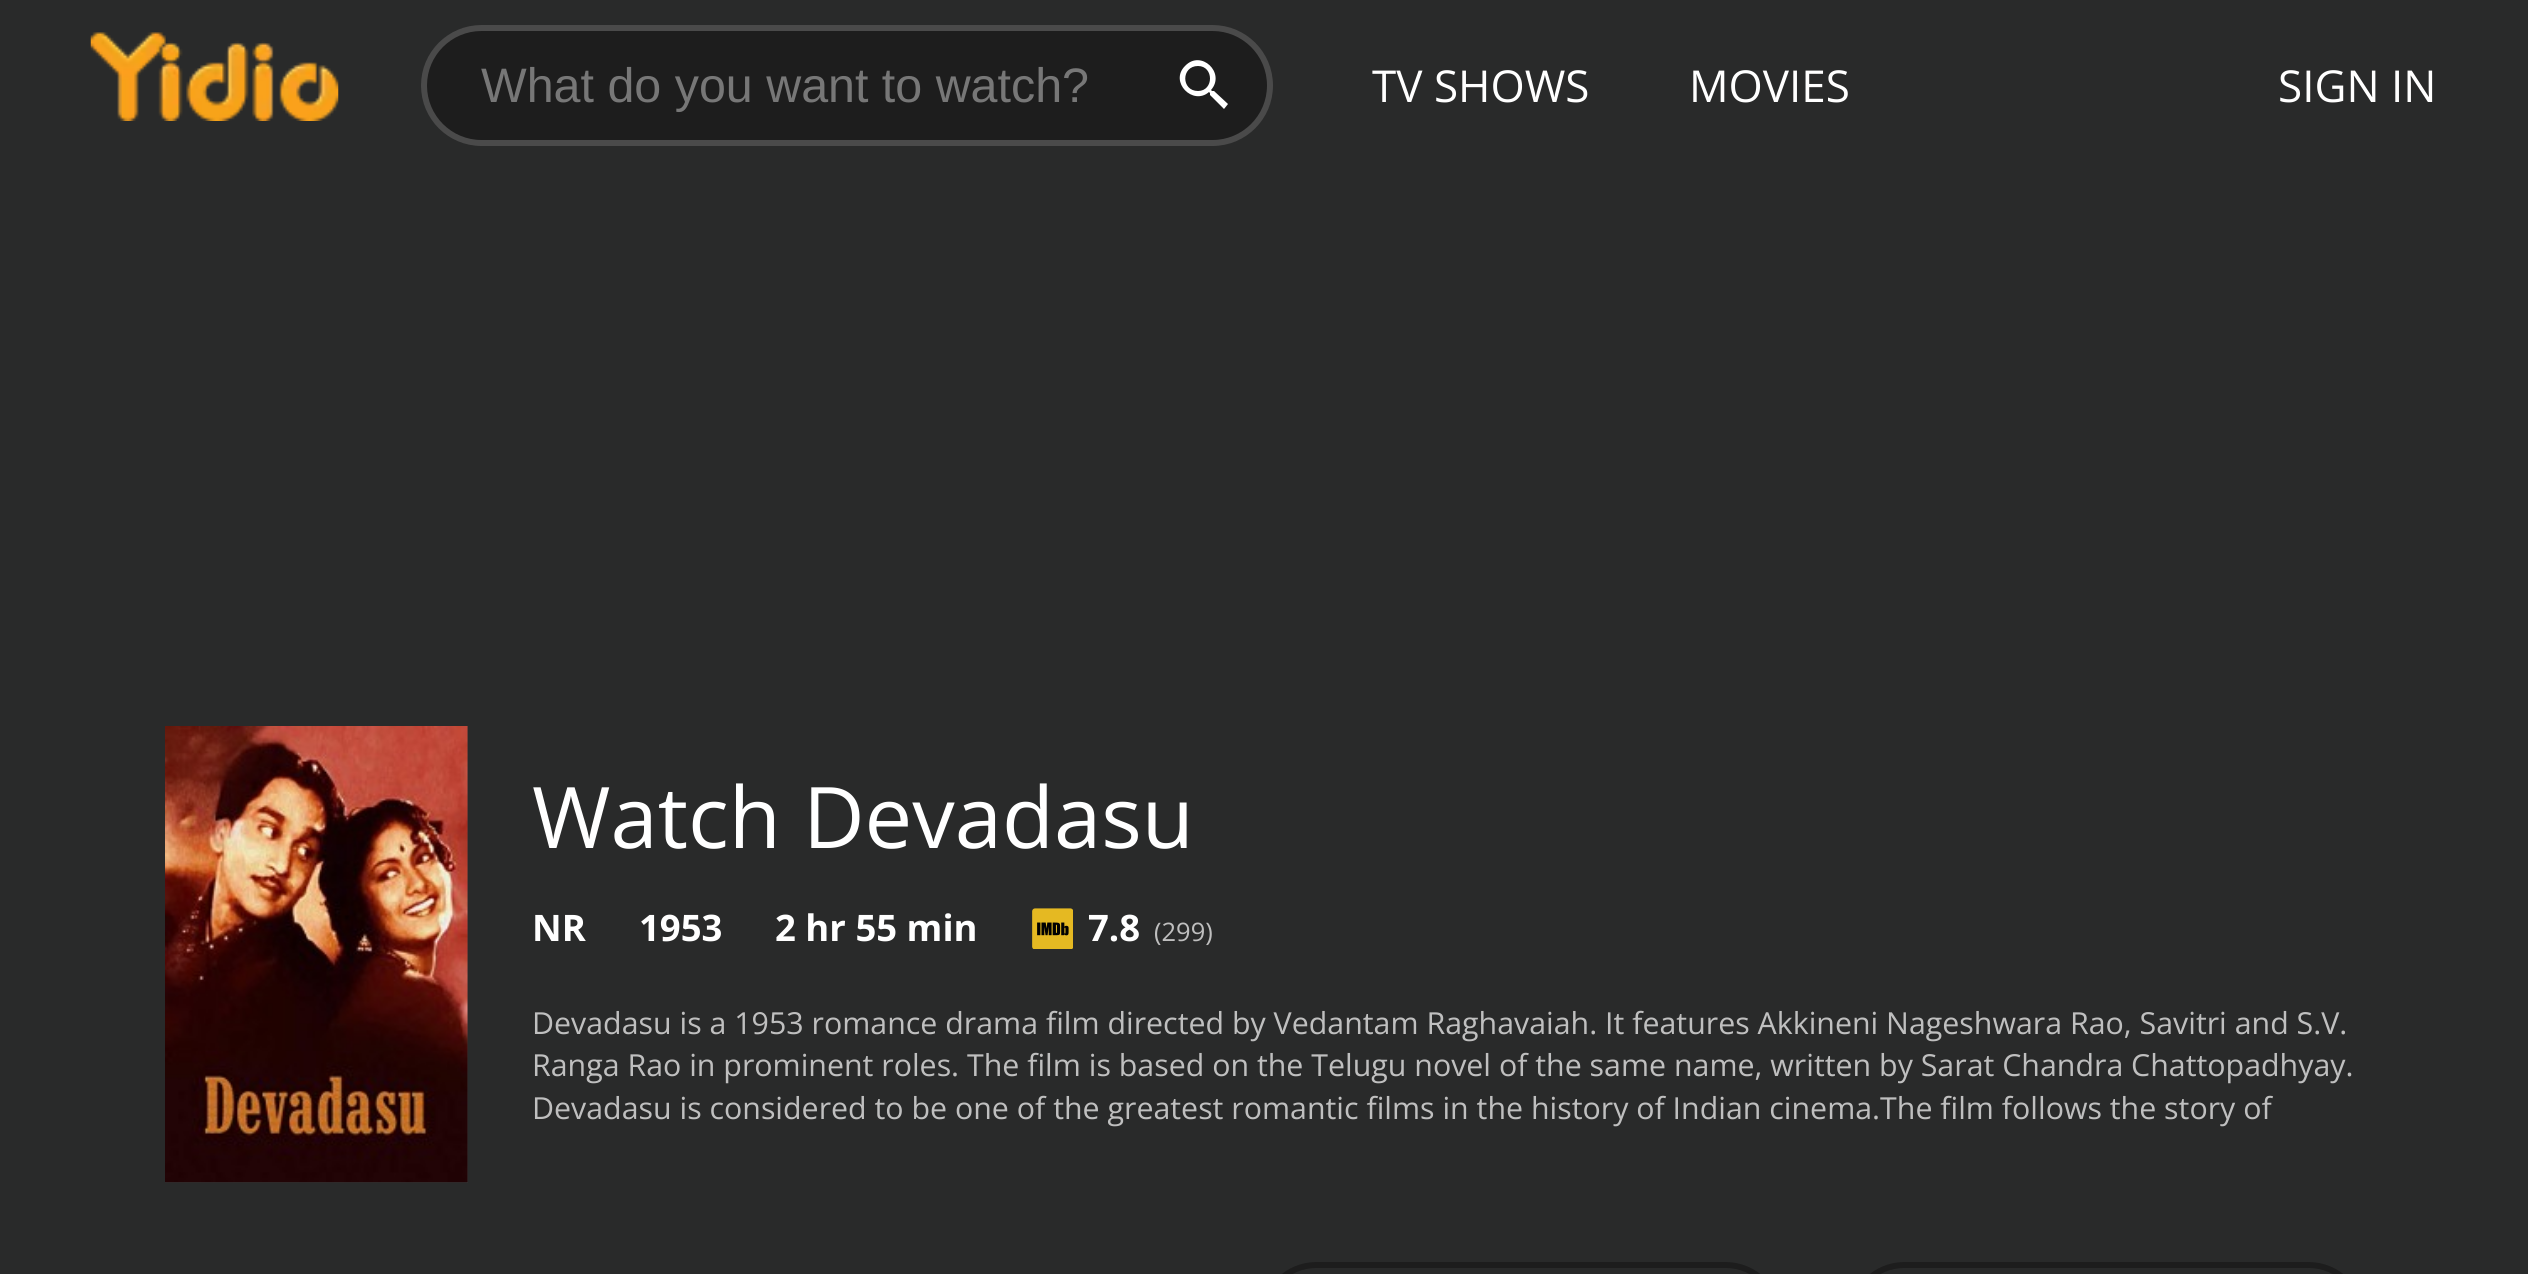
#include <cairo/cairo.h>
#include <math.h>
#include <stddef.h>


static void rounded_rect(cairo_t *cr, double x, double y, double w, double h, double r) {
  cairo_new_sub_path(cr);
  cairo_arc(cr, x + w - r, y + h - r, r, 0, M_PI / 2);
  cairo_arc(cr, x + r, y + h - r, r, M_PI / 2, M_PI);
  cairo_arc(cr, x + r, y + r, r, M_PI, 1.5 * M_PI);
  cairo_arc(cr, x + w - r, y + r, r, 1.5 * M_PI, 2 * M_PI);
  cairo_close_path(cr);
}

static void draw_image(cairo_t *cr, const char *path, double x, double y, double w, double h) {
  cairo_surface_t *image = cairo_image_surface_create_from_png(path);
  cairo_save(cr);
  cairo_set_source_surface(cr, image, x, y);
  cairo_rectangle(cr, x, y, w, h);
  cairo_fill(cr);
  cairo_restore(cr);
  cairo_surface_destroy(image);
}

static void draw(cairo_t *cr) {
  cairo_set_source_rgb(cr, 41 / 255.0, 42 / 255.0, 42 / 255.0);
  cairo_paint(cr);
  draw_image(cr, "images/1.png", 90, 32, 249, 89);
  cairo_set_source_rgb(cr, 29 / 255.0, 29 / 255.0, 29 / 255.0);
  rounded_rect(cr, 421, 25, 852, 121, 60.5);
  cairo_fill(cr);
  rounded_rect(cr, 424, 28, 846, 115, 57.5);
  cairo_set_source_rgba(cr, 1, 1, 1, 0.2);
  cairo_set_line_width(cr, 6);
  cairo_stroke(cr);
  cairo_set_source_rgb(cr, 1, 1, 1);
  cairo_new_path(cr);
  cairo_move_to(cr, 1214, 91);
  cairo_line_to(cr, 1212, 91);
  cairo_line_to(cr, 1211, 90);
  cairo_curve_to(cr, 1226, 73, 1201, 49, 1185, 66);
  cairo_curve_to(cr, 1169, 82, 1193, 106, 1209, 92);
  cairo_line_to(cr, 1210, 93);
  cairo_line_to(cr, 1210, 95);
  cairo_line_to(cr, 1224, 109);
  cairo_line_to(cr, 1228, 104);
  cairo_close_path(cr);
  cairo_move_to(cr, 1198, 91);
  cairo_curve_to(cr, 1181, 91, 1181, 66, 1198, 66);
  cairo_curve_to(cr, 1214, 66, 1214, 91, 1198, 91);
  cairo_close_path(cr);
  cairo_fill(cr);
  cairo_set_source_rgb(cr, 52 / 255.0, 53 / 255.0, 53 / 255.0);
  cairo_rectangle(cr, 165, 726, 303, 457);
  cairo_fill(cr);
  draw_image(cr, "images/2.png", 165, 726, 303, 457);
  draw_image(cr, "images/3.png", 1032, 908, 41, 41);
  rounded_rect(cr, 1263, 1265, 516, 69, 53.5);
  cairo_set_source_rgb(cr, 29 / 255.0, 29 / 255.0, 29 / 255.0);
  cairo_stroke(cr);
  rounded_rect(cr, 1851, 1265, 511, 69, 53.5);
  cairo_stroke(cr);
  cairo_select_font_face(cr, "Liberation Sans", CAIRO_FONT_SLANT_NORMAL, CAIRO_FONT_WEIGHT_NORMAL);
  cairo_set_font_size(cr, 48.4);
  cairo_set_source_rgb(cr, 119 / 255.0, 119 / 255.0, 119 / 255.0);
  cairo_move_to(cr, 481, 102);
  cairo_show_text(cr, "What do you want to watch?");
  cairo_select_font_face(cr, "Open Sans", CAIRO_FONT_SLANT_NORMAL, CAIRO_FONT_WEIGHT_NORMAL);
  cairo_set_font_size(cr, 44);
  cairo_set_source_rgb(cr, 1, 1, 1);
  cairo_move_to(cr, 1372, 102);
  cairo_show_text(cr, "TV SHOWS");
  cairo_move_to(cr, 1689, 102);
  cairo_show_text(cr, "MOVIES");
  cairo_move_to(cr, 2278, 102);
  cairo_show_text(cr, "SIGN IN");
  cairo_set_font_size(cr, 85);
  cairo_move_to(cr, 532, 848);
  cairo_show_text(cr, "Watch Devadasu");
  cairo_select_font_face(cr, "Open Sans", CAIRO_FONT_SLANT_NORMAL, CAIRO_FONT_WEIGHT_BOLD);
  cairo_set_font_size(cr, 36.5);
  cairo_move_to(cr, 532, 941);
  cairo_show_text(cr, "NR");
  cairo_move_to(cr, 639, 941);
  cairo_show_text(cr, "1953");
  cairo_move_to(cr, 775, 941);
  cairo_show_text(cr, "2 hr 55 min");
  cairo_move_to(cr, 1088, 941);
  cairo_show_text(cr, "7.8");
  cairo_select_font_face(cr, "Open Sans", CAIRO_FONT_SLANT_NORMAL, CAIRO_FONT_WEIGHT_NORMAL);
  cairo_set_font_size(cr, 25.5);
  cairo_set_source_rgb(cr, 191 / 255.0, 191 / 255.0, 191 / 255.0);
  cairo_move_to(cr, 1154, 941);
  cairo_show_text(cr, "(299)");
  cairo_set_font_size(cr, 30.35);
  cairo_move_to(cr, 532, 1034);
  cairo_show_text(cr, "Devadasu is a 1953 romance drama film directed by Vedantam Raghavaiah. It features Akkineni Nageshwara Rao, Savitri and S.V.");
  cairo_move_to(cr, 532, 1076);
  cairo_show_text(cr, "Ranga Rao in prominent roles. The film is based on the Telugu novel of the same name, written by Sarat Chandra Chattopadhyay.");
  cairo_move_to(cr, 532, 1119);
  cairo_show_text(cr, "Devadasu is considered to be one of the greatest romantic films in the history of Indian cinema.The film follows the story of");
}

int main(void) {
  cairo_surface_t *surface = cairo_image_surface_create(CAIRO_FORMAT_RGB24, 2528, 1274);
  cairo_t *cr = cairo_create(surface);
  cairo_font_options_t *options = cairo_font_options_create();
  cairo_font_options_set_hint_metrics(options, CAIRO_HINT_METRICS_OFF);
  cairo_font_options_set_hint_style(options, CAIRO_HINT_STYLE_NONE);
  cairo_set_font_options(cr, options);
  cairo_set_miter_limit(cr, 4);
  draw(cr);
  cairo_surface_write_to_png(surface, "out.png");
  cairo_font_options_destroy(options);
  cairo_destroy(cr);
  cairo_surface_destroy(surface);
  return 0;
}
